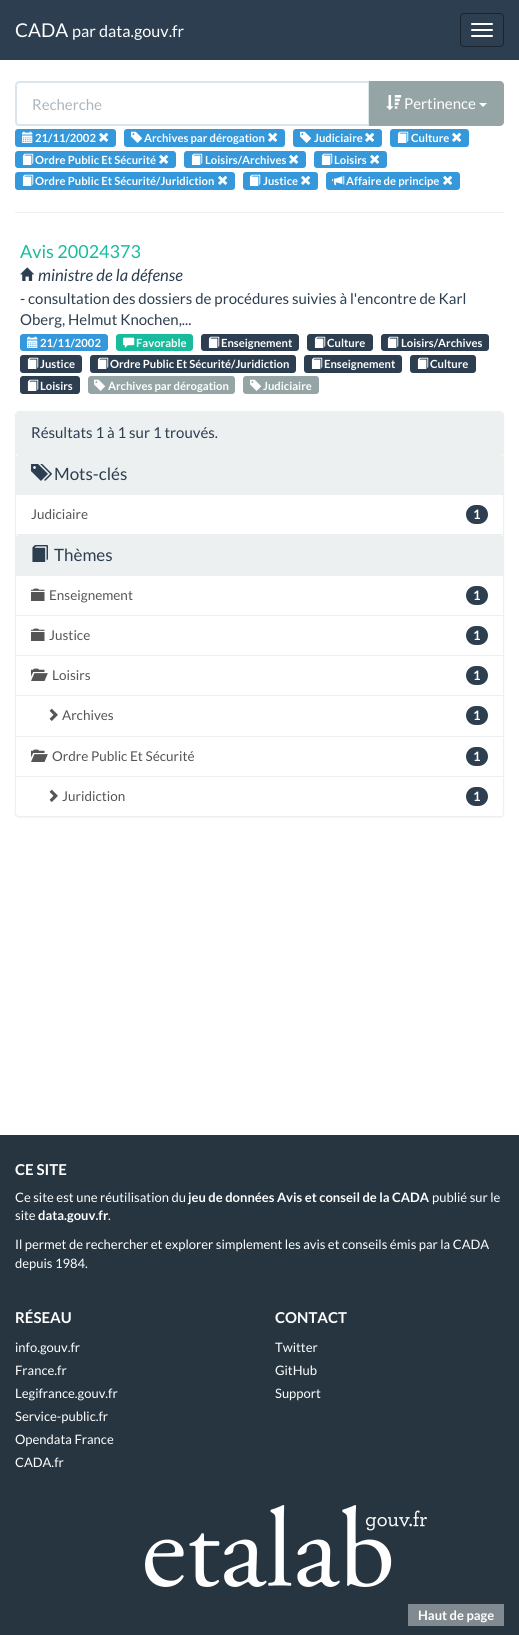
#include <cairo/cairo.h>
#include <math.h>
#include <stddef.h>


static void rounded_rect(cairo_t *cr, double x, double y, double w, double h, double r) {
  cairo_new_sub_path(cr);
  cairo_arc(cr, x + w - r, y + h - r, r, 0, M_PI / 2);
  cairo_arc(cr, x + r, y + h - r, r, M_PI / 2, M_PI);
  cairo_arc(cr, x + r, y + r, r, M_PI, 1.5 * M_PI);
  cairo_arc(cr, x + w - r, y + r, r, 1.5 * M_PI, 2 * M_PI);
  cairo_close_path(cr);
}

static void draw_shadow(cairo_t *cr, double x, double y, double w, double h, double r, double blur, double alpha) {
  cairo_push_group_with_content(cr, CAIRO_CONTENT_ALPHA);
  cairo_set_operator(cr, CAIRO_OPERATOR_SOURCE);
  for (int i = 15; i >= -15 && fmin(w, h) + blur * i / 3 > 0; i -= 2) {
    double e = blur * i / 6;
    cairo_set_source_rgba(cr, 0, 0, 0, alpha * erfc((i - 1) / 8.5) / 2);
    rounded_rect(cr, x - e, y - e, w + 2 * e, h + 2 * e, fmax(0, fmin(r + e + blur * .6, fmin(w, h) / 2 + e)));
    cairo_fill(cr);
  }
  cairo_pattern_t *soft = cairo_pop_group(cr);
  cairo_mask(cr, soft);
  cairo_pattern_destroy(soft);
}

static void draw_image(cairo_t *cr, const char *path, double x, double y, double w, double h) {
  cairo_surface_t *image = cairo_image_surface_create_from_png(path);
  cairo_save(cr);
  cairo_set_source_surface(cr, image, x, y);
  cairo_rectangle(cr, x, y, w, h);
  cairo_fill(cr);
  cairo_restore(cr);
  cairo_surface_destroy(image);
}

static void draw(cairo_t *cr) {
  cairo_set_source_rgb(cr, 1, 1, 1);
  cairo_paint(cr);
  cairo_set_source_rgb(cr, 44 / 255.0, 62 / 255.0, 80 / 255.0);
  cairo_rectangle(cr, 0, 0, 519, 60);
  cairo_fill(cr);
  rounded_rect(cr, 460.5, 13.5, 43, 33, 3.5);
  cairo_set_source_rgb(cr, 26 / 255.0, 36 / 255.0, 47 / 255.0);
  cairo_set_line_width(cr, 1);
  cairo_stroke(cr);
  cairo_set_source_rgb(cr, 1, 1, 1);
  rounded_rect(cr, 471, 23, 22, 2, 1);
  cairo_fill(cr);
  rounded_rect(cr, 471, 29, 22, 2, 1);
  cairo_fill(cr);
  rounded_rect(cr, 471, 35, 22, 2, 1);
  cairo_fill(cr);
  cairo_new_path(cr);
  cairo_move_to(cr, 19, 82);
  cairo_line_to(cr, 369, 82);
  cairo_line_to(cr, 369, 125);
  cairo_line_to(cr, 19, 125);
  cairo_curve_to(cr, 17.5, 125, 16, 123.5, 16, 122);
  cairo_line_to(cr, 16, 85);
  cairo_curve_to(cr, 16, 83.5, 17.5, 82, 19, 82);
  cairo_close_path(cr);
  cairo_set_source_rgb(cr, 220 / 255.0, 228 / 255.0, 236 / 255.0);
  cairo_set_line_width(cr, 2);
  cairo_stroke(cr);
  cairo_set_source_rgb(cr, 149 / 255.0, 165 / 255.0, 166 / 255.0);
  cairo_new_path(cr);
  cairo_move_to(cr, 370, 82);
  cairo_line_to(cr, 500, 82);
  cairo_curve_to(cr, 501.5, 82, 503, 83.5, 503, 85);
  cairo_line_to(cr, 503, 122);
  cairo_curve_to(cr, 503, 123.5, 501.5, 125, 500, 125);
  cairo_line_to(cr, 370, 125);
  cairo_close_path(cr);
  cairo_fill_preserve(cr);
  cairo_stroke(cr);
  draw_image(cr, "images/1.png", 386, 95, 16, 15);
  cairo_set_source_rgb(cr, 1, 1, 1);
  cairo_new_path(cr);
  cairo_move_to(cr, 479, 103);
  cairo_line_to(cr, 487, 103);
  cairo_line_to(cr, 483, 107);
  cairo_close_path(cr);
  cairo_fill(cr);
  cairo_set_source_rgb(cr, 52 / 255.0, 152 / 255.0, 219 / 255.0);
  rounded_rect(cr, 15, 129, 101, 18, 3);
  cairo_fill(cr);
  draw_image(cr, "images/2.png", 22, 131, 11, 12);
  draw_image(cr, "images/3.png", 99, 132, 10, 10);
  rounded_rect(cr, 124, 129, 161, 18, 3);
  cairo_fill(cr);
  draw_image(cr, "images/4.png", 131, 131, 12, 12);
  draw_image(cr, "images/3.png", 268, 132, 10, 10);
  rounded_rect(cr, 293, 129, 89, 18, 3);
  cairo_fill(cr);
  draw_image(cr, "images/4.png", 300, 131, 12, 12);
  draw_image(cr, "images/3.png", 365, 132, 10, 10);
  rounded_rect(cr, 390, 129, 79, 18, 3);
  cairo_fill(cr);
  draw_image(cr, "images/5.png", 397, 131, 12, 12);
  draw_image(cr, "images/3.png", 452, 132, 10, 10);
  rounded_rect(cr, 15, 151, 161, 17, 3);
  cairo_fill(cr);
  draw_image(cr, "images/5.png", 22, 153, 12, 12);
  draw_image(cr, "images/3.png", 159, 154, 10, 10);
  rounded_rect(cr, 184, 151, 122, 17, 3);
  cairo_fill(cr);
  draw_image(cr, "images/5.png", 191, 153, 12, 12);
  draw_image(cr, "images/3.png", 289, 154, 10, 10);
  rounded_rect(cr, 314, 151, 73, 17, 3);
  cairo_fill(cr);
  draw_image(cr, "images/5.png", 321, 153, 12, 12);
  draw_image(cr, "images/3.png", 370, 154, 10, 10);
  rounded_rect(cr, 15, 172, 220, 18, 3);
  cairo_fill(cr);
  draw_image(cr, "images/5.png", 22, 174, 12, 12);
  draw_image(cr, "images/3.png", 218, 175, 10, 10);
  rounded_rect(cr, 243, 172, 75, 18, 3);
  cairo_fill(cr);
  draw_image(cr, "images/5.png", 249, 174, 12, 12);
  draw_image(cr, "images/3.png", 301, 175, 10, 10);
  rounded_rect(cr, 326, 172, 134, 18, 3);
  cairo_fill(cr);
  draw_image(cr, "images/6.png", 332, 175, 13, 11);
  draw_image(cr, "images/3.png", 443, 175, 10, 10);
  cairo_set_source_rgb(cr, 236 / 255.0, 240 / 255.0, 241 / 255.0);
  cairo_rectangle(cr, 15, 212, 489, 1);
  cairo_fill(cr);
  draw_image(cr, "images/7.png", 20, 267, 15, 14);
  cairo_set_source_rgb(cr, 52 / 255.0, 152 / 255.0, 219 / 255.0);
  rounded_rect(cr, 20, 334, 88, 17, 3);
  cairo_fill(cr);
  draw_image(cr, "images/2.png", 27, 336, 11, 12);
  cairo_set_source_rgb(cr, 24 / 255.0, 188 / 255.0, 156 / 255.0);
  rounded_rect(cr, 116, 334, 77, 17, 3);
  cairo_fill(cr);
  draw_image(cr, "images/8.png", 123, 337, 12, 11);
  cairo_set_source_rgb(cr, 44 / 255.0, 62 / 255.0, 80 / 255.0);
  rounded_rect(cr, 201, 334, 98, 17, 3);
  cairo_fill(cr);
  draw_image(cr, "images/9.png", 208, 336, 12, 12);
  rounded_rect(cr, 307, 334, 66, 17, 3);
  cairo_fill(cr);
  draw_image(cr, "images/9.png", 314, 336, 12, 12);
  rounded_rect(cr, 381, 334, 108, 17, 3);
  cairo_fill(cr);
  draw_image(cr, "images/9.png", 387, 336, 12, 12);
  rounded_rect(cr, 20, 355, 62, 18, 3);
  cairo_fill(cr);
  draw_image(cr, "images/9.png", 27, 357, 12, 12);
  rounded_rect(cr, 90, 355, 206, 18, 3);
  cairo_fill(cr);
  draw_image(cr, "images/9.png", 97, 357, 12, 12);
  rounded_rect(cr, 304, 355, 98, 18, 3);
  cairo_fill(cr);
  draw_image(cr, "images/9.png", 311, 357, 12, 12);
  rounded_rect(cr, 410, 355, 66, 18, 3);
  cairo_fill(cr);
  draw_image(cr, "images/9.png", 417, 357, 12, 12);
  rounded_rect(cr, 20, 376, 60, 18, 3);
  cairo_fill(cr);
  draw_image(cr, "images/9.png", 27, 379, 12, 12);
  cairo_set_source_rgb(cr, 149 / 255.0, 165 / 255.0, 166 / 255.0);
  rounded_rect(cr, 88, 376, 147, 18, 3);
  cairo_fill(cr);
  draw_image(cr, "images/10.png", 94, 379, 12, 12);
  rounded_rect(cr, 243, 376, 76, 18, 3);
  cairo_fill(cr);
  draw_image(cr, "images/10.png", 250, 379, 12, 12);
  cairo_set_source_rgb(cr, 0, 0, 0);
  draw_shadow(cr, 15, 412, 489, 406, 4, 0.5, 0.05);
  cairo_set_source_rgb(cr, 1, 1, 1);
  rounded_rect(cr, 15.5, 411.5, 488, 405, 3.5);
  cairo_fill_preserve(cr);
  cairo_set_source_rgb(cr, 236 / 255.0, 240 / 255.0, 241 / 255.0);
  cairo_set_line_width(cr, 1);
  cairo_stroke(cr);
  cairo_new_path(cr);
  cairo_move_to(cr, 19, 412);
  cairo_line_to(cr, 500, 412);
  cairo_curve_to(cr, 501.5, 412, 503, 413.5, 503, 415);
  cairo_line_to(cr, 503, 454);
  cairo_line_to(cr, 16, 454);
  cairo_line_to(cr, 16, 415);
  cairo_curve_to(cr, 16, 413.5, 17.5, 412, 19, 412);
  cairo_close_path(cr);
  cairo_fill(cr);
  cairo_new_path(cr);
  cairo_move_to(cr, 19, 454);
  cairo_line_to(cr, 500, 454);
  cairo_curve_to(cr, 501.5, 454, 503, 455.5, 503, 457);
  cairo_line_to(cr, 503, 495);
  cairo_line_to(cr, 16, 495);
  cairo_line_to(cr, 16, 457);
  cairo_curve_to(cr, 16, 455.5, 17.5, 454, 19, 454);
  cairo_close_path(cr);
  cairo_fill(cr);
  draw_image(cr, "images/11.png", 31, 464, 21, 17);
  cairo_rectangle(cr, 16, 534, 487, 1);
  cairo_fill(cr);
  cairo_set_source_rgb(cr, 44 / 255.0, 62 / 255.0, 80 / 255.0);
  rounded_rect(cr, 466, 505, 22, 19, 9.5);
  cairo_fill(cr);
  cairo_set_source_rgb(cr, 236 / 255.0, 240 / 255.0, 241 / 255.0);
  cairo_new_path(cr);
  cairo_move_to(cr, 19, 535);
  cairo_line_to(cr, 500, 535);
  cairo_curve_to(cr, 501.5, 535, 503, 536.5, 503, 538);
  cairo_line_to(cr, 503, 576);
  cairo_line_to(cr, 16, 576);
  cairo_line_to(cr, 16, 538);
  cairo_curve_to(cr, 16, 536.5, 17.5, 535, 19, 535);
  cairo_close_path(cr);
  cairo_fill(cr);
  draw_image(cr, "images/12.png", 32, 545, 16, 17);
  cairo_rectangle(cr, 16, 615, 487, 1);
  cairo_fill(cr);
  draw_image(cr, "images/13.png", 31, 588, 14, 13);
  cairo_set_source_rgb(cr, 44 / 255.0, 62 / 255.0, 80 / 255.0);
  rounded_rect(cr, 466, 586, 22, 19, 9.5);
  cairo_fill(cr);
  cairo_set_source_rgb(cr, 236 / 255.0, 240 / 255.0, 241 / 255.0);
  cairo_rectangle(cr, 16, 655, 487, 1);
  cairo_fill(cr);
  draw_image(cr, "images/13.png", 31, 628, 14, 13);
  cairo_set_source_rgb(cr, 44 / 255.0, 62 / 255.0, 80 / 255.0);
  rounded_rect(cr, 466, 626, 22, 19, 9.5);
  cairo_fill(cr);
  cairo_set_source_rgb(cr, 236 / 255.0, 240 / 255.0, 241 / 255.0);
  cairo_rectangle(cr, 16, 695, 487, 1);
  cairo_fill(cr);
  draw_image(cr, "images/14.png", 31, 668, 17, 13);
  cairo_set_source_rgb(cr, 44 / 255.0, 62 / 255.0, 80 / 255.0);
  rounded_rect(cr, 466, 666, 22, 19, 9.5);
  cairo_fill(cr);
  cairo_set_source_rgb(cr, 236 / 255.0, 240 / 255.0, 241 / 255.0);
  cairo_rectangle(cr, 16, 736, 487, 1);
  cairo_fill(cr);
  draw_image(cr, "images/15.png", 49, 708, 9, 13);
  cairo_set_source_rgb(cr, 44 / 255.0, 62 / 255.0, 80 / 255.0);
  rounded_rect(cr, 466, 706, 22, 19, 9.5);
  cairo_fill(cr);
  draw_image(cr, "images/14.png", 31, 749, 17, 13);
  rounded_rect(cr, 466, 747, 22, 19, 9.5);
  cairo_fill(cr);
  cairo_set_source_rgb(cr, 1, 1, 1);
  cairo_new_path(cr);
  cairo_move_to(cr, 16, 776);
  cairo_line_to(cr, 503, 776);
  cairo_line_to(cr, 503, 813);
  cairo_curve_to(cr, 503, 814.5, 501.5, 816, 500, 816);
  cairo_line_to(cr, 19, 816);
  cairo_curve_to(cr, 17.5, 816, 16, 814.5, 16, 813);
  cairo_close_path(cr);
  cairo_fill(cr);
  cairo_set_source_rgb(cr, 236 / 255.0, 240 / 255.0, 241 / 255.0);
  cairo_rectangle(cr, 16, 776, 487, 1);
  cairo_fill(cr);
  draw_image(cr, "images/15.png", 49, 789, 9, 13);
  cairo_set_source_rgb(cr, 44 / 255.0, 62 / 255.0, 80 / 255.0);
  rounded_rect(cr, 466, 787, 22, 19, 9.5);
  cairo_fill(cr);
  cairo_set_source_rgb(cr, 38 / 255.0, 53 / 255.0, 63 / 255.0);
  cairo_rectangle(cr, 0, 1135, 519, 500);
  cairo_fill(cr);
  draw_image(cr, "images/16.png", 145, 1505, 282, 82);
  cairo_set_source_rgb(cr, 129 / 255.0, 138 / 255.0, 144 / 255.0);
  cairo_rectangle(cr, 408, 1604, 96, 22);
  cairo_fill(cr);
  cairo_select_font_face(cr, "Lato", CAIRO_FONT_SLANT_NORMAL, CAIRO_FONT_WEIGHT_NORMAL);
  cairo_set_font_size(cr, 19);
  cairo_set_source_rgb(cr, 1, 1, 1);
  cairo_move_to(cr, 15, 37);
  cairo_show_text(cr, "CADA");
  cairo_set_font_size(cr, 16.25);
  cairo_move_to(cr, 72, 37);
  cairo_show_text(cr, "par data.gouv.fr");
  cairo_set_font_size(cr, 15);
  cairo_set_source_rgb(cr, 172 / 255.0, 182 / 255.0, 192 / 255.0);
  cairo_move_to(cr, 32, 110);
  cairo_show_text(cr, "Recherche");
  cairo_set_source_rgb(cr, 1, 1, 1);
  cairo_move_to(cr, 404, 109);
  cairo_show_text(cr, "Pertinence");
  cairo_select_font_face(cr, "Lato", CAIRO_FONT_SLANT_NORMAL, CAIRO_FONT_WEIGHT_BOLD);
  cairo_set_font_size(cr, 11.25);
  cairo_move_to(cr, 35, 142);
  cairo_show_text(cr, "21/11/2002");
  cairo_move_to(cr, 144, 142);
  cairo_show_text(cr, "Archives par dérogation");
  cairo_move_to(cr, 314, 142);
  cairo_show_text(cr, "Judiciaire");
  cairo_move_to(cr, 411, 142);
  cairo_show_text(cr, "Culture");
  cairo_move_to(cr, 35, 164);
  cairo_show_text(cr, "Ordre Public Et Sécurité");
  cairo_move_to(cr, 205, 164);
  cairo_show_text(cr, "Loisirs/Archives");
  cairo_move_to(cr, 334, 164);
  cairo_show_text(cr, "Loisirs");
  cairo_move_to(cr, 35, 185);
  cairo_show_text(cr, "Ordre Public Et Sécurité/Juridiction");
  cairo_move_to(cr, 263, 185);
  cairo_show_text(cr, "Justice");
  cairo_move_to(cr, 346, 185);
  cairo_show_text(cr, "Affaire de principe");
  cairo_select_font_face(cr, "Lato", CAIRO_FONT_SLANT_NORMAL, CAIRO_FONT_WEIGHT_NORMAL);
  cairo_set_font_size(cr, 18);
  cairo_set_source_rgb(cr, 24 / 255.0, 188 / 255.0, 156 / 255.0);
  cairo_move_to(cr, 20, 258);
  cairo_show_text(cr, "Avis 20024373");
  cairo_select_font_face(cr, "Lato", CAIRO_FONT_SLANT_ITALIC, CAIRO_FONT_WEIGHT_NORMAL);
  cairo_set_font_size(cr, 16.5);
  cairo_set_source_rgb(cr, 44 / 255.0, 62 / 255.0, 80 / 255.0);
  cairo_move_to(cr, 38, 281);
  cairo_show_text(cr, "ministre de la défense");
  cairo_select_font_face(cr, "Lato", CAIRO_FONT_SLANT_NORMAL, CAIRO_FONT_WEIGHT_NORMAL);
  cairo_set_font_size(cr, 15);
  cairo_move_to(cr, 20, 304);
  cairo_show_text(cr, "- consultation des dossiers de procédures suivies à l'encontre de Karl");
  cairo_move_to(cr, 20, 325);
  cairo_show_text(cr, "Oberg, Helmut Knochen,...");
  cairo_select_font_face(cr, "Lato", CAIRO_FONT_SLANT_NORMAL, CAIRO_FONT_WEIGHT_BOLD);
  cairo_set_font_size(cr, 11.25);
  cairo_set_source_rgb(cr, 1, 1, 1);
  cairo_move_to(cr, 40, 347);
  cairo_show_text(cr, "21/11/2002");
  cairo_move_to(cr, 136, 347);
  cairo_show_text(cr, "Favorable");
  cairo_move_to(cr, 221, 347);
  cairo_show_text(cr, "Enseignement");
  cairo_move_to(cr, 327, 347);
  cairo_show_text(cr, "Culture");
  cairo_move_to(cr, 401, 347);
  cairo_show_text(cr, "Loisirs/Archives");
  cairo_move_to(cr, 40, 368);
  cairo_show_text(cr, "Justice");
  cairo_move_to(cr, 110, 368);
  cairo_show_text(cr, "Ordre Public Et Sécurité/Juridiction");
  cairo_move_to(cr, 324, 368);
  cairo_show_text(cr, "Enseignement");
  cairo_move_to(cr, 430, 368);
  cairo_show_text(cr, "Culture");
  cairo_move_to(cr, 40, 390);
  cairo_show_text(cr, "Loisirs");
  cairo_move_to(cr, 108, 390);
  cairo_show_text(cr, "Archives par dérogation");
  cairo_move_to(cr, 263, 390);
  cairo_show_text(cr, "Judiciaire");
  cairo_select_font_face(cr, "Lato", CAIRO_FONT_SLANT_NORMAL, CAIRO_FONT_WEIGHT_NORMAL);
  cairo_set_font_size(cr, 15);
  cairo_set_source_rgb(cr, 44 / 255.0, 62 / 255.0, 80 / 255.0);
  cairo_move_to(cr, 31, 438);
  cairo_show_text(cr, "Résultats 1 à 1 sur 1 trouvés.");
  cairo_set_font_size(cr, 17);
  cairo_move_to(cr, 54, 480);
  cairo_show_text(cr, "Mots-clés");
  cairo_set_font_size(cr, 13.5);
  cairo_set_source_rgb(cr, 85 / 255.0, 85 / 255.0, 85 / 255.0);
  cairo_move_to(cr, 31, 519);
  cairo_show_text(cr, "Judiciaire");
  cairo_select_font_face(cr, "Lato", CAIRO_FONT_SLANT_NORMAL, CAIRO_FONT_WEIGHT_BOLD);
  cairo_set_font_size(cr, 13);
  cairo_set_source_rgb(cr, 1, 1, 1);
  cairo_move_to(cr, 473, 519);
  cairo_show_text(cr, "1");
  cairo_select_font_face(cr, "Lato", CAIRO_FONT_SLANT_NORMAL, CAIRO_FONT_WEIGHT_NORMAL);
  cairo_set_font_size(cr, 17);
  cairo_set_source_rgb(cr, 44 / 255.0, 62 / 255.0, 80 / 255.0);
  cairo_move_to(cr, 54, 561);
  cairo_show_text(cr, "Thèmes");
  cairo_set_font_size(cr, 13.5);
  cairo_set_source_rgb(cr, 85 / 255.0, 85 / 255.0, 85 / 255.0);
  cairo_move_to(cr, 49, 600);
  cairo_show_text(cr, "Enseignement");
  cairo_select_font_face(cr, "Lato", CAIRO_FONT_SLANT_NORMAL, CAIRO_FONT_WEIGHT_BOLD);
  cairo_set_font_size(cr, 13);
  cairo_set_source_rgb(cr, 1, 1, 1);
  cairo_move_to(cr, 473, 600);
  cairo_show_text(cr, "1");
  cairo_select_font_face(cr, "Lato", CAIRO_FONT_SLANT_NORMAL, CAIRO_FONT_WEIGHT_NORMAL);
  cairo_set_font_size(cr, 13.5);
  cairo_set_source_rgb(cr, 85 / 255.0, 85 / 255.0, 85 / 255.0);
  cairo_move_to(cr, 49, 640);
  cairo_show_text(cr, "Justice");
  cairo_select_font_face(cr, "Lato", CAIRO_FONT_SLANT_NORMAL, CAIRO_FONT_WEIGHT_BOLD);
  cairo_set_font_size(cr, 13);
  cairo_set_source_rgb(cr, 1, 1, 1);
  cairo_move_to(cr, 473, 640);
  cairo_show_text(cr, "1");
  cairo_select_font_face(cr, "Lato", CAIRO_FONT_SLANT_NORMAL, CAIRO_FONT_WEIGHT_NORMAL);
  cairo_set_font_size(cr, 13.5);
  cairo_set_source_rgb(cr, 85 / 255.0, 85 / 255.0, 85 / 255.0);
  cairo_move_to(cr, 52, 680);
  cairo_show_text(cr, "Loisirs");
  cairo_select_font_face(cr, "Lato", CAIRO_FONT_SLANT_NORMAL, CAIRO_FONT_WEIGHT_BOLD);
  cairo_set_font_size(cr, 13);
  cairo_set_source_rgb(cr, 1, 1, 1);
  cairo_move_to(cr, 473, 680);
  cairo_show_text(cr, "1");
  cairo_select_font_face(cr, "Lato", CAIRO_FONT_SLANT_NORMAL, CAIRO_FONT_WEIGHT_NORMAL);
  cairo_set_font_size(cr, 13.5);
  cairo_set_source_rgb(cr, 85 / 255.0, 85 / 255.0, 85 / 255.0);
  cairo_move_to(cr, 62, 720);
  cairo_show_text(cr, "Archives");
  cairo_select_font_face(cr, "Lato", CAIRO_FONT_SLANT_NORMAL, CAIRO_FONT_WEIGHT_BOLD);
  cairo_set_font_size(cr, 13);
  cairo_set_source_rgb(cr, 1, 1, 1);
  cairo_move_to(cr, 473, 720);
  cairo_show_text(cr, "1");
  cairo_select_font_face(cr, "Lato", CAIRO_FONT_SLANT_NORMAL, CAIRO_FONT_WEIGHT_NORMAL);
  cairo_set_font_size(cr, 13.5);
  cairo_set_source_rgb(cr, 85 / 255.0, 85 / 255.0, 85 / 255.0);
  cairo_move_to(cr, 52, 761);
  cairo_show_text(cr, "Ordre Public Et Sécurité");
  cairo_select_font_face(cr, "Lato", CAIRO_FONT_SLANT_NORMAL, CAIRO_FONT_WEIGHT_BOLD);
  cairo_set_font_size(cr, 13);
  cairo_set_source_rgb(cr, 1, 1, 1);
  cairo_move_to(cr, 473, 761);
  cairo_show_text(cr, "1");
  cairo_select_font_face(cr, "Lato", CAIRO_FONT_SLANT_NORMAL, CAIRO_FONT_WEIGHT_NORMAL);
  cairo_set_font_size(cr, 13.5);
  cairo_set_source_rgb(cr, 85 / 255.0, 85 / 255.0, 85 / 255.0);
  cairo_move_to(cr, 62, 801);
  cairo_show_text(cr, "Juridiction");
  cairo_select_font_face(cr, "Lato", CAIRO_FONT_SLANT_NORMAL, CAIRO_FONT_WEIGHT_BOLD);
  cairo_set_font_size(cr, 13);
  cairo_set_source_rgb(cr, 1, 1, 1);
  cairo_move_to(cr, 473, 801);
  cairo_show_text(cr, "1");
  cairo_set_font_size(cr, 15);
  cairo_move_to(cr, 15, 1175);
  cairo_show_text(cr, "CE SITE");
  cairo_select_font_face(cr, "Lato", CAIRO_FONT_SLANT_NORMAL, CAIRO_FONT_WEIGHT_NORMAL);
  cairo_set_font_size(cr, 13);
  cairo_move_to(cr, 15, 1202);
  cairo_show_text(cr, "Ce site est une réutilisation du");
  cairo_select_font_face(cr, "Lato", CAIRO_FONT_SLANT_NORMAL, CAIRO_FONT_WEIGHT_BOLD);
  cairo_move_to(cr, 188, 1202);
  cairo_show_text(cr, "jeu de données Avis et conseil de la CADA");
  cairo_select_font_face(cr, "Lato", CAIRO_FONT_SLANT_NORMAL, CAIRO_FONT_WEIGHT_NORMAL);
  cairo_move_to(cr, 432, 1202);
  cairo_show_text(cr, "publié sur le");
  cairo_move_to(cr, 15, 1220);
  cairo_show_text(cr, "site");
  cairo_select_font_face(cr, "Lato", CAIRO_FONT_SLANT_NORMAL, CAIRO_FONT_WEIGHT_BOLD);
  cairo_move_to(cr, 38, 1220);
  cairo_show_text(cr, "data.gouv.fr");
  cairo_select_font_face(cr, "Lato", CAIRO_FONT_SLANT_NORMAL, CAIRO_FONT_WEIGHT_NORMAL);
  cairo_move_to(cr, 108, 1220);
  cairo_show_text(cr, ".");
  cairo_move_to(cr, 15, 1249);
  cairo_show_text(cr, "Il permet de rechercher et explorer simplement les avis et conseils émis par la CADA");
  cairo_move_to(cr, 15, 1268);
  cairo_show_text(cr, "depuis 1984.");
  cairo_select_font_face(cr, "Lato", CAIRO_FONT_SLANT_NORMAL, CAIRO_FONT_WEIGHT_BOLD);
  cairo_set_font_size(cr, 15);
  cairo_move_to(cr, 15, 1323);
  cairo_show_text(cr, "RÉSEAU");
  cairo_select_font_face(cr, "Lato", CAIRO_FONT_SLANT_NORMAL, CAIRO_FONT_WEIGHT_NORMAL);
  cairo_set_font_size(cr, 13);
  cairo_move_to(cr, 15, 1352);
  cairo_show_text(cr, "info.gouv.fr");
  cairo_move_to(cr, 15, 1375);
  cairo_show_text(cr, "France.fr");
  cairo_move_to(cr, 15, 1398);
  cairo_show_text(cr, "Legifrance.gouv.fr");
  cairo_move_to(cr, 15, 1421);
  cairo_show_text(cr, "Service-public.fr");
  cairo_move_to(cr, 15, 1444);
  cairo_show_text(cr, "Opendata France");
  cairo_move_to(cr, 15, 1467);
  cairo_show_text(cr, "CADA.fr");
  cairo_select_font_face(cr, "Lato", CAIRO_FONT_SLANT_NORMAL, CAIRO_FONT_WEIGHT_BOLD);
  cairo_set_font_size(cr, 15);
  cairo_move_to(cr, 275, 1323);
  cairo_show_text(cr, "CONTACT");
  cairo_select_font_face(cr, "Lato", CAIRO_FONT_SLANT_NORMAL, CAIRO_FONT_WEIGHT_NORMAL);
  cairo_set_font_size(cr, 13);
  cairo_move_to(cr, 275, 1352);
  cairo_show_text(cr, "Twitter");
  cairo_move_to(cr, 275, 1375);
  cairo_show_text(cr, "GitHub");
  cairo_move_to(cr, 275, 1398);
  cairo_show_text(cr, "Support");
  cairo_select_font_face(cr, "Lato", CAIRO_FONT_SLANT_NORMAL, CAIRO_FONT_WEIGHT_BOLD);
  cairo_move_to(cr, 418, 1620);
  cairo_show_text(cr, "Haut de page");
}

int main(void) {
  cairo_surface_t *surface = cairo_image_surface_create(CAIRO_FORMAT_RGB24, 519, 1635);
  cairo_t *cr = cairo_create(surface);
  cairo_font_options_t *options = cairo_font_options_create();
  cairo_font_options_set_hint_metrics(options, CAIRO_HINT_METRICS_OFF);
  cairo_font_options_set_hint_style(options, CAIRO_HINT_STYLE_NONE);
  cairo_set_font_options(cr, options);
  cairo_set_miter_limit(cr, 4);
  draw(cr);
  cairo_surface_write_to_png(surface, "out.png");
  cairo_font_options_destroy(options);
  cairo_destroy(cr);
  cairo_surface_destroy(surface);
  return 0;
}
